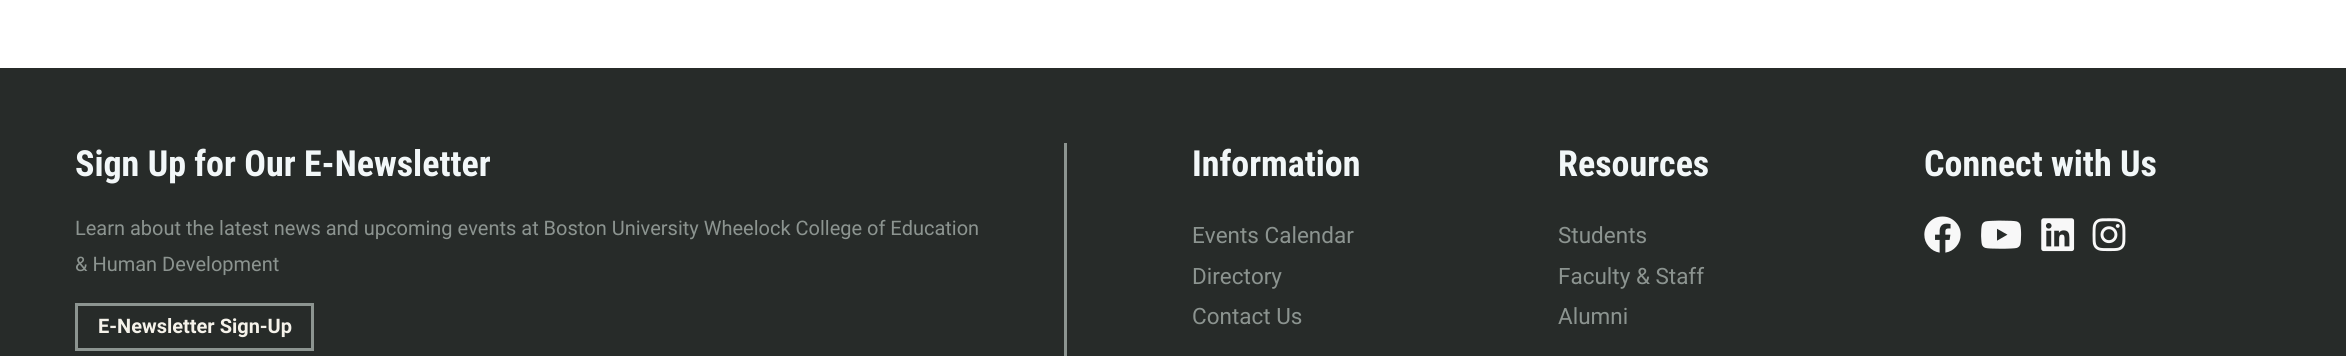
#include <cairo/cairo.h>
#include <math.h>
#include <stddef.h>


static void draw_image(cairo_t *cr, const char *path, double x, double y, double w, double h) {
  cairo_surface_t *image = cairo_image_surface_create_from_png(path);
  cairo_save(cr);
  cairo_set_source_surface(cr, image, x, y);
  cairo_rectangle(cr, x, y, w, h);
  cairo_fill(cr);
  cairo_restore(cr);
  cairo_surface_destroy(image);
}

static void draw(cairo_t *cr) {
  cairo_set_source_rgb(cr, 1, 1, 1);
  cairo_paint(cr);
  cairo_set_source_rgb(cr, 39 / 255.0, 43 / 255.0, 41 / 255.0);
  cairo_rectangle(cr, 0, 68, 2346, 288);
  cairo_fill(cr);
  cairo_set_source_rgb(cr, 140 / 255.0, 148 / 255.0, 144 / 255.0);
  cairo_rectangle(cr, 1064, 143, 3, 213);
  cairo_fill(cr);
  cairo_rectangle(cr, 76.5, 304.5, 236, 45);
  cairo_set_line_width(cr, 3);
  cairo_stroke(cr);
  draw_image(cr, "images/1.png", 1924, 216, 37, 37);
  draw_image(cr, "images/2.png", 1981, 220, 41, 29);
  draw_image(cr, "images/3.png", 2041, 218, 34, 34);
  draw_image(cr, "images/4.png", 2092, 218, 34, 34);
  cairo_select_font_face(cr, "Roboto Condensed", CAIRO_FONT_SLANT_NORMAL, CAIRO_FONT_WEIGHT_BOLD);
  cairo_set_font_size(cr, 36);
  cairo_set_source_rgb(cr, 242 / 255.0, 247 / 255.0, 248 / 255.0);
  cairo_move_to(cr, 75, 176);
  cairo_show_text(cr, "Sign Up for Our E-Newsletter");
  cairo_select_font_face(cr, "Roboto", CAIRO_FONT_SLANT_NORMAL, CAIRO_FONT_WEIGHT_NORMAL);
  cairo_set_font_size(cr, 20);
  cairo_set_source_rgb(cr, 140 / 255.0, 148 / 255.0, 144 / 255.0);
  cairo_move_to(cr, 75, 235);
  cairo_show_text(cr, "Learn about the latest news and upcoming events at Boston University Wheelock College of Education");
  cairo_move_to(cr, 75, 271);
  cairo_show_text(cr, "& Human Development");
  cairo_select_font_face(cr, "Roboto", CAIRO_FONT_SLANT_NORMAL, CAIRO_FONT_WEIGHT_BOLD);
  cairo_set_source_rgb(cr, 245 / 255.0, 242 / 255.0, 234 / 255.0);
  cairo_move_to(cr, 98, 333);
  cairo_show_text(cr, "E-Newsletter Sign-Up");
  cairo_select_font_face(cr, "Roboto Condensed", CAIRO_FONT_SLANT_NORMAL, CAIRO_FONT_WEIGHT_BOLD);
  cairo_set_font_size(cr, 36);
  cairo_set_source_rgb(cr, 242 / 255.0, 247 / 255.0, 248 / 255.0);
  cairo_move_to(cr, 1192, 176);
  cairo_show_text(cr, "Information");
  cairo_select_font_face(cr, "Roboto", CAIRO_FONT_SLANT_NORMAL, CAIRO_FONT_WEIGHT_NORMAL);
  cairo_set_font_size(cr, 22.5);
  cairo_set_source_rgb(cr, 140 / 255.0, 148 / 255.0, 144 / 255.0);
  cairo_move_to(cr, 1192, 243);
  cairo_show_text(cr, "Events Calendar");
  cairo_move_to(cr, 1192, 284);
  cairo_show_text(cr, "Directory");
  cairo_move_to(cr, 1192, 324);
  cairo_show_text(cr, "Contact Us");
  cairo_select_font_face(cr, "Roboto Condensed", CAIRO_FONT_SLANT_NORMAL, CAIRO_FONT_WEIGHT_BOLD);
  cairo_set_font_size(cr, 36);
  cairo_set_source_rgb(cr, 242 / 255.0, 247 / 255.0, 248 / 255.0);
  cairo_move_to(cr, 1558, 176);
  cairo_show_text(cr, "Resources");
  cairo_select_font_face(cr, "Roboto", CAIRO_FONT_SLANT_NORMAL, CAIRO_FONT_WEIGHT_NORMAL);
  cairo_set_font_size(cr, 22.5);
  cairo_set_source_rgb(cr, 140 / 255.0, 148 / 255.0, 144 / 255.0);
  cairo_move_to(cr, 1558, 243);
  cairo_show_text(cr, "Students");
  cairo_move_to(cr, 1558, 284);
  cairo_show_text(cr, "Faculty & Staff");
  cairo_move_to(cr, 1558, 324);
  cairo_show_text(cr, "Alumni");
  cairo_select_font_face(cr, "Roboto Condensed", CAIRO_FONT_SLANT_NORMAL, CAIRO_FONT_WEIGHT_BOLD);
  cairo_set_font_size(cr, 36);
  cairo_set_source_rgb(cr, 242 / 255.0, 247 / 255.0, 248 / 255.0);
  cairo_move_to(cr, 1924, 176);
  cairo_show_text(cr, "Connect with Us");
}

int main(void) {
  cairo_surface_t *surface = cairo_image_surface_create(CAIRO_FORMAT_RGB24, 2346, 356);
  cairo_t *cr = cairo_create(surface);
  cairo_font_options_t *options = cairo_font_options_create();
  cairo_font_options_set_hint_metrics(options, CAIRO_HINT_METRICS_OFF);
  cairo_font_options_set_hint_style(options, CAIRO_HINT_STYLE_NONE);
  cairo_set_font_options(cr, options);
  cairo_set_miter_limit(cr, 4);
  draw(cr);
  cairo_surface_write_to_png(surface, "out.png");
  cairo_font_options_destroy(options);
  cairo_destroy(cr);
  cairo_surface_destroy(surface);
  return 0;
}
